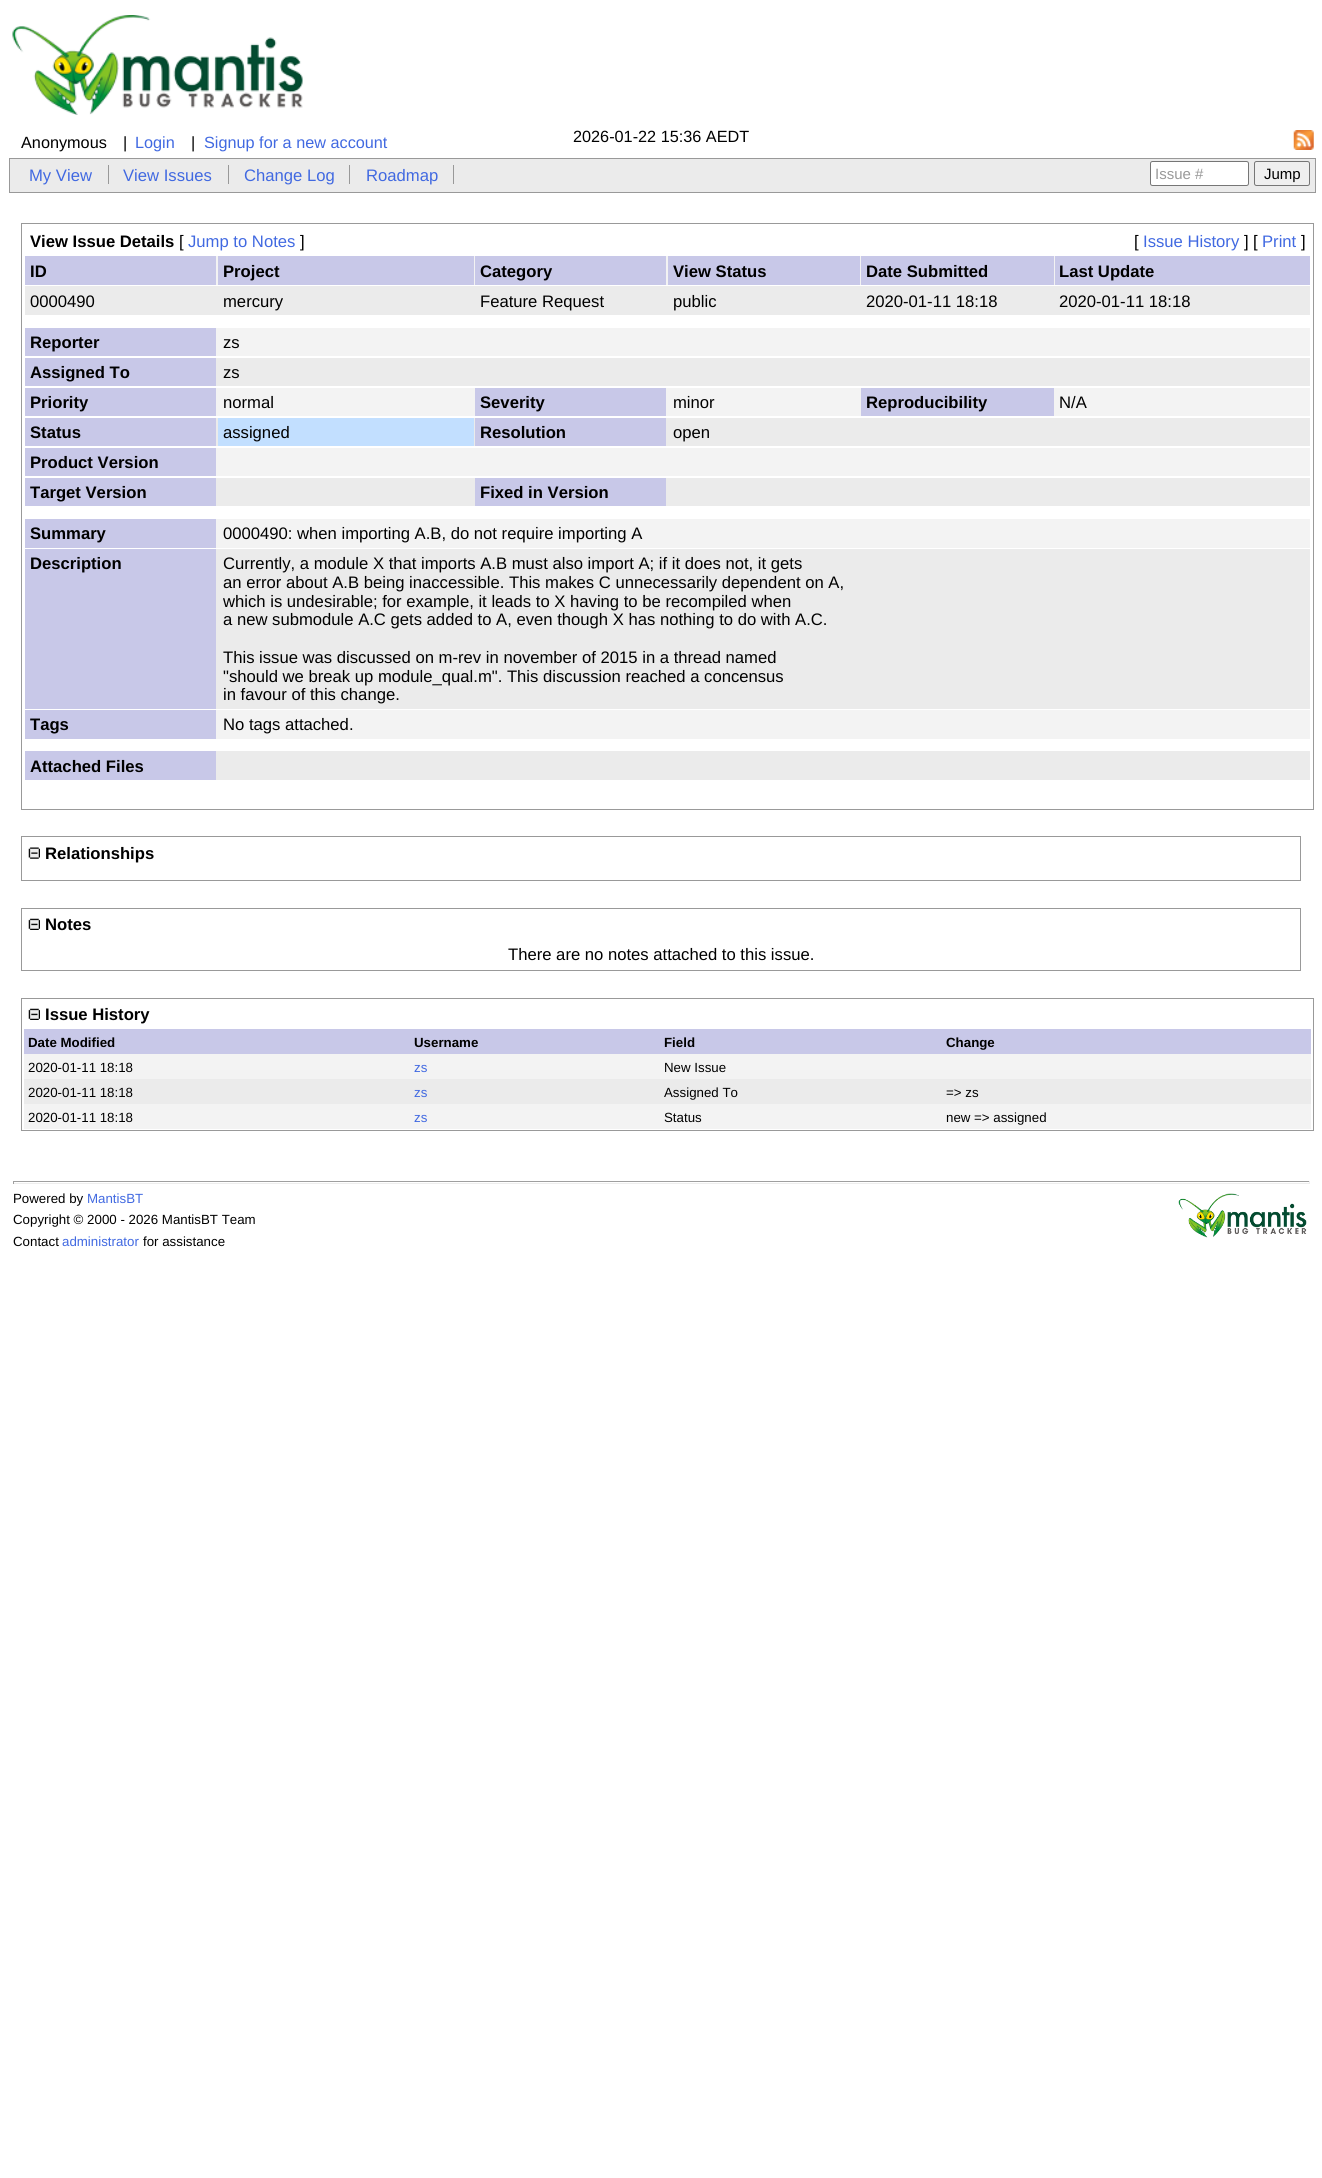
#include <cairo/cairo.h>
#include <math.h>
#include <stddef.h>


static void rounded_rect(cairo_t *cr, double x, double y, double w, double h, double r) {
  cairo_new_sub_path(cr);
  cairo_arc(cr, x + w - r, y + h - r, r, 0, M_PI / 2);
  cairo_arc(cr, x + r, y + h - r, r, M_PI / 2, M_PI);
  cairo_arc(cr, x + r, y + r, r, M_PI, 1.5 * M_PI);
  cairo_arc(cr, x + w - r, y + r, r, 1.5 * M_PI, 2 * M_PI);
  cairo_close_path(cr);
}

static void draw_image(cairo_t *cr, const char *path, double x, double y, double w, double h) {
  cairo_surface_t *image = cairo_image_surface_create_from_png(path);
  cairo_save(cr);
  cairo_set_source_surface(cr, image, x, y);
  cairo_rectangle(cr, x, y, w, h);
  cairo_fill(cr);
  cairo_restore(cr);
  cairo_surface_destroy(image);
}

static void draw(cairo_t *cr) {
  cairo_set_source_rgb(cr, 1, 1, 1);
  cairo_paint(cr);
  draw_image(cr, "images/1.png", 12, 15, 291, 100);
  draw_image(cr, "images/2.png", 1293, 130, 21, 20);
  cairo_set_source_rgb(cr, 235 / 255.0, 235 / 255.0, 235 / 255.0);
  cairo_rectangle(cr, 9.5, 158.5, 1306, 34);
  cairo_fill_preserve(cr);
  cairo_set_source_rgb(cr, 153 / 255.0, 153 / 255.0, 153 / 255.0);
  cairo_set_line_width(cr, 1);
  cairo_stroke(cr);
  cairo_rectangle(cr, 108, 165, 1, 19);
  cairo_fill(cr);
  cairo_rectangle(cr, 228, 165, 1, 19);
  cairo_fill(cr);
  cairo_rectangle(cr, 349, 165, 1, 19);
  cairo_fill(cr);
  cairo_rectangle(cr, 453, 165, 1, 19);
  cairo_fill(cr);
  cairo_set_source_rgb(cr, 1, 1, 1);
  rounded_rect(cr, 1150.5, 161.5, 98, 24, 2);
  cairo_fill_preserve(cr);
  cairo_set_source_rgb(cr, 118 / 255.0, 118 / 255.0, 118 / 255.0);
  cairo_stroke(cr);
  cairo_set_source_rgb(cr, 239 / 255.0, 239 / 255.0, 239 / 255.0);
  rounded_rect(cr, 1254.5, 161.5, 55, 24, 2);
  cairo_fill_preserve(cr);
  cairo_set_source_rgb(cr, 118 / 255.0, 118 / 255.0, 118 / 255.0);
  cairo_stroke(cr);
  cairo_rectangle(cr, 21.5, 223.5, 1292, 586);
  cairo_set_source_rgb(cr, 153 / 255.0, 153 / 255.0, 153 / 255.0);
  cairo_stroke(cr);
  cairo_set_source_rgb(cr, 243 / 255.0, 243 / 255.0, 243 / 255.0);
  cairo_rectangle(cr, 216, 256, 839, 29);
  cairo_fill(cr);
  cairo_set_source_rgb(cr, 200 / 255.0, 200 / 255.0, 232 / 255.0);
  cairo_rectangle(cr, 25, 256, 191, 29);
  cairo_fill(cr);
  cairo_rectangle(cr, 218, 256, 256, 29);
  cairo_fill(cr);
  cairo_rectangle(cr, 475, 256, 191, 29);
  cairo_fill(cr);
  cairo_rectangle(cr, 668, 256, 192, 29);
  cairo_fill(cr);
  cairo_rectangle(cr, 861, 256, 193, 29);
  cairo_fill(cr);
  cairo_rectangle(cr, 1055, 256, 255, 29);
  cairo_fill(cr);
  cairo_set_source_rgb(cr, 235 / 255.0, 235 / 255.0, 235 / 255.0);
  cairo_rectangle(cr, 25, 286, 1285, 29);
  cairo_fill(cr);
  cairo_set_source_rgb(cr, 243 / 255.0, 243 / 255.0, 243 / 255.0);
  cairo_rectangle(cr, 216, 328, 1094, 28);
  cairo_fill(cr);
  cairo_set_source_rgb(cr, 200 / 255.0, 200 / 255.0, 232 / 255.0);
  cairo_rectangle(cr, 25, 328, 191, 28);
  cairo_fill(cr);
  cairo_set_source_rgb(cr, 235 / 255.0, 235 / 255.0, 235 / 255.0);
  cairo_rectangle(cr, 216, 358, 1094, 28);
  cairo_fill(cr);
  cairo_set_source_rgb(cr, 200 / 255.0, 200 / 255.0, 232 / 255.0);
  cairo_rectangle(cr, 25, 358, 191, 28);
  cairo_fill(cr);
  cairo_set_source_rgb(cr, 243 / 255.0, 243 / 255.0, 243 / 255.0);
  cairo_rectangle(cr, 216, 388, 1094, 28);
  cairo_fill(cr);
  cairo_set_source_rgb(cr, 200 / 255.0, 200 / 255.0, 232 / 255.0);
  cairo_rectangle(cr, 25, 388, 191, 28);
  cairo_fill(cr);
  cairo_rectangle(cr, 475, 388, 191, 28);
  cairo_fill(cr);
  cairo_rectangle(cr, 861, 388, 193, 28);
  cairo_fill(cr);
  cairo_set_source_rgb(cr, 235 / 255.0, 235 / 255.0, 235 / 255.0);
  cairo_rectangle(cr, 216, 418, 1094, 28);
  cairo_fill(cr);
  cairo_set_source_rgb(cr, 200 / 255.0, 200 / 255.0, 232 / 255.0);
  cairo_rectangle(cr, 25, 418, 191, 28);
  cairo_fill(cr);
  cairo_set_source_rgb(cr, 194 / 255.0, 223 / 255.0, 1);
  cairo_rectangle(cr, 218, 418, 256, 28);
  cairo_fill(cr);
  cairo_set_source_rgb(cr, 200 / 255.0, 200 / 255.0, 232 / 255.0);
  cairo_rectangle(cr, 475, 418, 191, 28);
  cairo_fill(cr);
  cairo_set_source_rgb(cr, 243 / 255.0, 243 / 255.0, 243 / 255.0);
  cairo_rectangle(cr, 216, 448, 1094, 28);
  cairo_fill(cr);
  cairo_set_source_rgb(cr, 200 / 255.0, 200 / 255.0, 232 / 255.0);
  cairo_rectangle(cr, 25, 448, 191, 28);
  cairo_fill(cr);
  cairo_set_source_rgb(cr, 235 / 255.0, 235 / 255.0, 235 / 255.0);
  cairo_rectangle(cr, 216, 478, 1094, 28);
  cairo_fill(cr);
  cairo_set_source_rgb(cr, 200 / 255.0, 200 / 255.0, 232 / 255.0);
  cairo_rectangle(cr, 25, 478, 191, 28);
  cairo_fill(cr);
  cairo_rectangle(cr, 475, 478, 191, 28);
  cairo_fill(cr);
  cairo_set_source_rgb(cr, 243 / 255.0, 243 / 255.0, 243 / 255.0);
  cairo_rectangle(cr, 216, 519, 1094, 29);
  cairo_fill(cr);
  cairo_set_source_rgb(cr, 200 / 255.0, 200 / 255.0, 232 / 255.0);
  cairo_rectangle(cr, 25, 519, 191, 29);
  cairo_fill(cr);
  cairo_set_source_rgb(cr, 235 / 255.0, 235 / 255.0, 235 / 255.0);
  cairo_rectangle(cr, 216, 549, 1094, 160);
  cairo_fill(cr);
  cairo_set_source_rgb(cr, 200 / 255.0, 200 / 255.0, 232 / 255.0);
  cairo_rectangle(cr, 25, 549, 191, 160);
  cairo_fill(cr);
  cairo_set_source_rgb(cr, 243 / 255.0, 243 / 255.0, 243 / 255.0);
  cairo_rectangle(cr, 216, 710, 1094, 29);
  cairo_fill(cr);
  cairo_set_source_rgb(cr, 200 / 255.0, 200 / 255.0, 232 / 255.0);
  cairo_rectangle(cr, 25, 710, 191, 29);
  cairo_fill(cr);
  cairo_set_source_rgb(cr, 235 / 255.0, 235 / 255.0, 235 / 255.0);
  cairo_rectangle(cr, 216, 751, 1094, 29);
  cairo_fill(cr);
  cairo_set_source_rgb(cr, 200 / 255.0, 200 / 255.0, 232 / 255.0);
  cairo_rectangle(cr, 25, 751, 191, 29);
  cairo_fill(cr);
  cairo_rectangle(cr, 21.5, 836.5, 1279, 44);
  cairo_set_source_rgb(cr, 153 / 255.0, 153 / 255.0, 153 / 255.0);
  cairo_stroke(cr);
  draw_image(cr, "images/3.png", 28, 847, 12, 12);
  cairo_rectangle(cr, 21.5, 908.5, 1279, 62);
  cairo_stroke(cr);
  draw_image(cr, "images/4.png", 28, 918, 12, 12);
  cairo_rectangle(cr, 21.5, 998.5, 1292, 132);
  cairo_stroke(cr);
  draw_image(cr, "images/4.png", 28, 1008, 12, 12);
  cairo_set_source_rgb(cr, 200 / 255.0, 200 / 255.0, 232 / 255.0);
  cairo_rectangle(cr, 24, 1029, 1287, 25);
  cairo_fill(cr);
  cairo_set_source_rgb(cr, 243 / 255.0, 243 / 255.0, 243 / 255.0);
  cairo_rectangle(cr, 24, 1054, 1287, 25);
  cairo_fill(cr);
  cairo_set_source_rgb(cr, 235 / 255.0, 235 / 255.0, 235 / 255.0);
  cairo_rectangle(cr, 24, 1079, 1287, 25);
  cairo_fill(cr);
  cairo_set_source_rgb(cr, 243 / 255.0, 243 / 255.0, 243 / 255.0);
  cairo_rectangle(cr, 24, 1104, 1287, 25);
  cairo_fill(cr);
  cairo_set_source_rgb(cr, 159 / 255.0, 159 / 255.0, 159 / 255.0);
  cairo_rectangle(cr, 13, 1181, 1297, 1);
  cairo_fill(cr);
  cairo_set_source_rgb(cr, 238 / 255.0, 238 / 255.0, 238 / 255.0);
  cairo_rectangle(cr, 1309, 1181, 1, 3);
  cairo_fill(cr);
  cairo_rectangle(cr, 13, 1183, 1297, 1);
  cairo_fill(cr);
  cairo_set_source_rgb(cr, 159 / 255.0, 159 / 255.0, 159 / 255.0);
  cairo_rectangle(cr, 13, 1181, 1, 3);
  cairo_fill(cr);
  draw_image(cr, "images/5.png", 1178, 1193, 129, 45);
  cairo_select_font_face(cr, "Liberation Sans", CAIRO_FONT_SLANT_NORMAL, CAIRO_FONT_WEIGHT_NORMAL);
  cairo_set_font_size(cr, 16.25);
  cairo_set_source_rgb(cr, 0, 0, 0);
  cairo_move_to(cr, 21, 148);
  cairo_show_text(cr, "Anonymous");
  cairo_move_to(cr, 123, 148);
  cairo_show_text(cr, "|");
  cairo_set_source_rgb(cr, 65 / 255.0, 105 / 255.0, 225 / 255.0);
  cairo_move_to(cr, 135, 148);
  cairo_show_text(cr, "Login");
  cairo_set_source_rgb(cr, 0, 0, 0);
  cairo_move_to(cr, 191, 148);
  cairo_show_text(cr, "|");
  cairo_set_source_rgb(cr, 65 / 255.0, 105 / 255.0, 225 / 255.0);
  cairo_move_to(cr, 204, 148);
  cairo_show_text(cr, "Signup for a new account");
  cairo_set_source_rgb(cr, 0, 0, 0);
  cairo_move_to(cr, 573, 142);
  cairo_show_text(cr, "2026-01-22 15:36 AEDT");
  cairo_set_font_size(cr, 16.65);
  cairo_set_source_rgb(cr, 65 / 255.0, 105 / 255.0, 225 / 255.0);
  cairo_move_to(cr, 29, 181);
  cairo_show_text(cr, "My View");
  cairo_move_to(cr, 123, 181);
  cairo_show_text(cr, "View Issues");
  cairo_move_to(cr, 244, 181);
  cairo_show_text(cr, "Change Log");
  cairo_move_to(cr, 366, 181);
  cairo_show_text(cr, "Roadmap");
  cairo_set_font_size(cr, 15);
  cairo_set_source_rgb(cr, 153 / 255.0, 153 / 255.0, 153 / 255.0);
  cairo_move_to(cr, 1155, 179);
  cairo_show_text(cr, "Issue #");
  cairo_set_source_rgb(cr, 0, 0, 0);
  cairo_move_to(cr, 1264, 179);
  cairo_show_text(cr, "Jump");
  cairo_select_font_face(cr, "Liberation Sans", CAIRO_FONT_SLANT_NORMAL, CAIRO_FONT_WEIGHT_BOLD);
  cairo_set_font_size(cr, 16.65);
  cairo_move_to(cr, 30, 247);
  cairo_show_text(cr, "View Issue Details");
  cairo_select_font_face(cr, "Liberation Sans", CAIRO_FONT_SLANT_NORMAL, CAIRO_FONT_WEIGHT_NORMAL);
  cairo_move_to(cr, 179, 247);
  cairo_show_text(cr, "[");
  cairo_set_source_rgb(cr, 65 / 255.0, 105 / 255.0, 225 / 255.0);
  cairo_move_to(cr, 188, 247);
  cairo_show_text(cr, "Jump to Notes");
  cairo_set_source_rgb(cr, 0, 0, 0);
  cairo_move_to(cr, 300, 247);
  cairo_show_text(cr, "]");
  cairo_move_to(cr, 1134, 247);
  cairo_show_text(cr, "[");
  cairo_set_source_rgb(cr, 65 / 255.0, 105 / 255.0, 225 / 255.0);
  cairo_move_to(cr, 1143, 247);
  cairo_show_text(cr, "Issue History");
  cairo_set_source_rgb(cr, 0, 0, 0);
  cairo_move_to(cr, 1244, 247);
  cairo_show_text(cr, "]");
  cairo_move_to(cr, 1253, 247);
  cairo_show_text(cr, "[");
  cairo_set_source_rgb(cr, 65 / 255.0, 105 / 255.0, 225 / 255.0);
  cairo_move_to(cr, 1262, 247);
  cairo_show_text(cr, "Print");
  cairo_set_source_rgb(cr, 0, 0, 0);
  cairo_move_to(cr, 1301, 247);
  cairo_show_text(cr, "]");
  cairo_select_font_face(cr, "Liberation Sans", CAIRO_FONT_SLANT_NORMAL, CAIRO_FONT_WEIGHT_BOLD);
  cairo_move_to(cr, 30, 277);
  cairo_show_text(cr, "ID");
  cairo_move_to(cr, 223, 277);
  cairo_show_text(cr, "Project");
  cairo_move_to(cr, 480, 277);
  cairo_show_text(cr, "Category");
  cairo_move_to(cr, 673, 277);
  cairo_show_text(cr, "View Status");
  cairo_move_to(cr, 866, 277);
  cairo_show_text(cr, "Date Submitted");
  cairo_move_to(cr, 1059, 277);
  cairo_show_text(cr, "Last Update");
  cairo_select_font_face(cr, "Liberation Sans", CAIRO_FONT_SLANT_NORMAL, CAIRO_FONT_WEIGHT_NORMAL);
  cairo_move_to(cr, 30, 307);
  cairo_show_text(cr, "0000490");
  cairo_move_to(cr, 223, 307);
  cairo_show_text(cr, "mercury");
  cairo_move_to(cr, 480, 307);
  cairo_show_text(cr, "Feature Request");
  cairo_move_to(cr, 673, 307);
  cairo_show_text(cr, "public");
  cairo_move_to(cr, 866, 307);
  cairo_show_text(cr, "2020-01-11 18:18");
  cairo_move_to(cr, 1059, 307);
  cairo_show_text(cr, "2020-01-11 18:18");
  cairo_select_font_face(cr, "Liberation Sans", CAIRO_FONT_SLANT_NORMAL, CAIRO_FONT_WEIGHT_BOLD);
  cairo_move_to(cr, 30, 348);
  cairo_show_text(cr, "Reporter");
  cairo_select_font_face(cr, "Liberation Sans", CAIRO_FONT_SLANT_NORMAL, CAIRO_FONT_WEIGHT_NORMAL);
  cairo_move_to(cr, 223, 348);
  cairo_show_text(cr, "zs");
  cairo_select_font_face(cr, "Liberation Sans", CAIRO_FONT_SLANT_NORMAL, CAIRO_FONT_WEIGHT_BOLD);
  cairo_move_to(cr, 30, 378);
  cairo_show_text(cr, "Assigned To");
  cairo_select_font_face(cr, "Liberation Sans", CAIRO_FONT_SLANT_NORMAL, CAIRO_FONT_WEIGHT_NORMAL);
  cairo_move_to(cr, 223, 378);
  cairo_show_text(cr, "zs");
  cairo_select_font_face(cr, "Liberation Sans", CAIRO_FONT_SLANT_NORMAL, CAIRO_FONT_WEIGHT_BOLD);
  cairo_move_to(cr, 30, 408);
  cairo_show_text(cr, "Priority");
  cairo_select_font_face(cr, "Liberation Sans", CAIRO_FONT_SLANT_NORMAL, CAIRO_FONT_WEIGHT_NORMAL);
  cairo_move_to(cr, 223, 408);
  cairo_show_text(cr, "normal");
  cairo_select_font_face(cr, "Liberation Sans", CAIRO_FONT_SLANT_NORMAL, CAIRO_FONT_WEIGHT_BOLD);
  cairo_move_to(cr, 480, 408);
  cairo_show_text(cr, "Severity");
  cairo_select_font_face(cr, "Liberation Sans", CAIRO_FONT_SLANT_NORMAL, CAIRO_FONT_WEIGHT_NORMAL);
  cairo_move_to(cr, 673, 408);
  cairo_show_text(cr, "minor");
  cairo_select_font_face(cr, "Liberation Sans", CAIRO_FONT_SLANT_NORMAL, CAIRO_FONT_WEIGHT_BOLD);
  cairo_move_to(cr, 866, 408);
  cairo_show_text(cr, "Reproducibility");
  cairo_select_font_face(cr, "Liberation Sans", CAIRO_FONT_SLANT_NORMAL, CAIRO_FONT_WEIGHT_NORMAL);
  cairo_move_to(cr, 1059, 408);
  cairo_show_text(cr, "N/A");
  cairo_select_font_face(cr, "Liberation Sans", CAIRO_FONT_SLANT_NORMAL, CAIRO_FONT_WEIGHT_BOLD);
  cairo_move_to(cr, 30, 438);
  cairo_show_text(cr, "Status");
  cairo_select_font_face(cr, "Liberation Sans", CAIRO_FONT_SLANT_NORMAL, CAIRO_FONT_WEIGHT_NORMAL);
  cairo_move_to(cr, 223, 438);
  cairo_show_text(cr, "assigned");
  cairo_select_font_face(cr, "Liberation Sans", CAIRO_FONT_SLANT_NORMAL, CAIRO_FONT_WEIGHT_BOLD);
  cairo_move_to(cr, 480, 438);
  cairo_show_text(cr, "Resolution");
  cairo_select_font_face(cr, "Liberation Sans", CAIRO_FONT_SLANT_NORMAL, CAIRO_FONT_WEIGHT_NORMAL);
  cairo_move_to(cr, 673, 438);
  cairo_show_text(cr, "open");
  cairo_select_font_face(cr, "Liberation Sans", CAIRO_FONT_SLANT_NORMAL, CAIRO_FONT_WEIGHT_BOLD);
  cairo_move_to(cr, 30, 468);
  cairo_show_text(cr, "Product Version");
  cairo_move_to(cr, 30, 498);
  cairo_show_text(cr, "Target Version");
  cairo_move_to(cr, 480, 498);
  cairo_show_text(cr, "Fixed in Version");
  cairo_move_to(cr, 30, 539);
  cairo_show_text(cr, "Summary");
  cairo_select_font_face(cr, "Liberation Sans", CAIRO_FONT_SLANT_NORMAL, CAIRO_FONT_WEIGHT_NORMAL);
  cairo_move_to(cr, 223, 539);
  cairo_show_text(cr, "0000490: when importing A.B, do not require importing A");
  cairo_select_font_face(cr, "Liberation Sans", CAIRO_FONT_SLANT_NORMAL, CAIRO_FONT_WEIGHT_BOLD);
  cairo_move_to(cr, 30, 569);
  cairo_show_text(cr, "Description");
  cairo_select_font_face(cr, "Liberation Sans", CAIRO_FONT_SLANT_NORMAL, CAIRO_FONT_WEIGHT_NORMAL);
  cairo_move_to(cr, 223, 569);
  cairo_show_text(cr, "Currently, a module X that imports A.B must also import A; if it does not, it gets");
  cairo_move_to(cr, 223, 588);
  cairo_show_text(cr, "an error about A.B being inaccessible. This makes C unnecessarily dependent on A,");
  cairo_move_to(cr, 223, 607);
  cairo_show_text(cr, "which is undesirable; for example, it leads to X having to be recompiled when");
  cairo_move_to(cr, 223, 625);
  cairo_show_text(cr, "a new submodule A.C gets added to A, even though X has nothing to do with A.C.");
  cairo_move_to(cr, 223, 663);
  cairo_show_text(cr, "This issue was discussed on m-rev in november of 2015 in a thread named");
  cairo_move_to(cr, 223, 682);
  cairo_show_text(cr, "\"should we break up module_qual.m\". This discussion reached a concensus");
  cairo_move_to(cr, 223, 700);
  cairo_show_text(cr, "in favour of this change.");
  cairo_select_font_face(cr, "Liberation Sans", CAIRO_FONT_SLANT_NORMAL, CAIRO_FONT_WEIGHT_BOLD);
  cairo_move_to(cr, 30, 730);
  cairo_show_text(cr, "Tags");
  cairo_select_font_face(cr, "Liberation Sans", CAIRO_FONT_SLANT_NORMAL, CAIRO_FONT_WEIGHT_NORMAL);
  cairo_move_to(cr, 223, 730);
  cairo_show_text(cr, "No tags attached.");
  cairo_select_font_face(cr, "Liberation Sans", CAIRO_FONT_SLANT_NORMAL, CAIRO_FONT_WEIGHT_BOLD);
  cairo_move_to(cr, 30, 772);
  cairo_show_text(cr, "Attached Files");
  cairo_move_to(cr, 45, 859);
  cairo_show_text(cr, "Relationships");
  cairo_move_to(cr, 45, 930);
  cairo_show_text(cr, "Notes");
  cairo_select_font_face(cr, "Liberation Sans", CAIRO_FONT_SLANT_NORMAL, CAIRO_FONT_WEIGHT_NORMAL);
  cairo_move_to(cr, 508, 960);
  cairo_show_text(cr, "There are no notes attached to this issue.");
  cairo_select_font_face(cr, "Liberation Sans", CAIRO_FONT_SLANT_NORMAL, CAIRO_FONT_WEIGHT_BOLD);
  cairo_move_to(cr, 45, 1020);
  cairo_show_text(cr, "Issue History");
  cairo_set_font_size(cr, 13.3);
  cairo_move_to(cr, 28, 1047);
  cairo_show_text(cr, "Date Modified");
  cairo_move_to(cr, 414, 1047);
  cairo_show_text(cr, "Username");
  cairo_move_to(cr, 664, 1047);
  cairo_show_text(cr, "Field");
  cairo_move_to(cr, 946, 1047);
  cairo_show_text(cr, "Change");
  cairo_select_font_face(cr, "Liberation Sans", CAIRO_FONT_SLANT_NORMAL, CAIRO_FONT_WEIGHT_NORMAL);
  cairo_move_to(cr, 28, 1072);
  cairo_show_text(cr, "2020-01-11 18:18");
  cairo_set_source_rgb(cr, 65 / 255.0, 105 / 255.0, 225 / 255.0);
  cairo_move_to(cr, 414, 1072);
  cairo_show_text(cr, "zs");
  cairo_set_source_rgb(cr, 0, 0, 0);
  cairo_move_to(cr, 664, 1072);
  cairo_show_text(cr, "New Issue");
  cairo_move_to(cr, 28, 1097);
  cairo_show_text(cr, "2020-01-11 18:18");
  cairo_set_source_rgb(cr, 65 / 255.0, 105 / 255.0, 225 / 255.0);
  cairo_move_to(cr, 414, 1097);
  cairo_show_text(cr, "zs");
  cairo_set_source_rgb(cr, 0, 0, 0);
  cairo_move_to(cr, 664, 1097);
  cairo_show_text(cr, "Assigned To");
  cairo_move_to(cr, 946, 1097);
  cairo_show_text(cr, "=> zs");
  cairo_move_to(cr, 28, 1122);
  cairo_show_text(cr, "2020-01-11 18:18");
  cairo_set_source_rgb(cr, 65 / 255.0, 105 / 255.0, 225 / 255.0);
  cairo_move_to(cr, 414, 1122);
  cairo_show_text(cr, "zs");
  cairo_set_source_rgb(cr, 0, 0, 0);
  cairo_move_to(cr, 664, 1122);
  cairo_show_text(cr, "Status");
  cairo_move_to(cr, 946, 1122);
  cairo_show_text(cr, "new => assigned");
  cairo_move_to(cr, 13, 1203);
  cairo_show_text(cr, "Powered by");
  cairo_set_source_rgb(cr, 65 / 255.0, 105 / 255.0, 225 / 255.0);
  cairo_move_to(cr, 87, 1203);
  cairo_show_text(cr, "MantisBT");
  cairo_set_source_rgb(cr, 0, 0, 0);
  cairo_move_to(cr, 13, 1224);
  cairo_show_text(cr, "Copyright © 2000 - 2026 MantisBT Team");
  cairo_move_to(cr, 13, 1246);
  cairo_show_text(cr, "Contact");
  cairo_set_source_rgb(cr, 65 / 255.0, 105 / 255.0, 225 / 255.0);
  cairo_move_to(cr, 62, 1246);
  cairo_show_text(cr, "administrator");
  cairo_set_source_rgb(cr, 0, 0, 0);
  cairo_move_to(cr, 143, 1246);
  cairo_show_text(cr, "for assistance");
}

int main(void) {
  cairo_surface_t *surface = cairo_image_surface_create(CAIRO_FORMAT_RGB24, 1322, 2178);
  cairo_t *cr = cairo_create(surface);
  cairo_font_options_t *options = cairo_font_options_create();
  cairo_font_options_set_hint_metrics(options, CAIRO_HINT_METRICS_OFF);
  cairo_font_options_set_hint_style(options, CAIRO_HINT_STYLE_NONE);
  cairo_set_font_options(cr, options);
  cairo_set_miter_limit(cr, 4);
  draw(cr);
  cairo_surface_write_to_png(surface, "out.png");
  cairo_font_options_destroy(options);
  cairo_destroy(cr);
  cairo_surface_destroy(surface);
  return 0;
}
